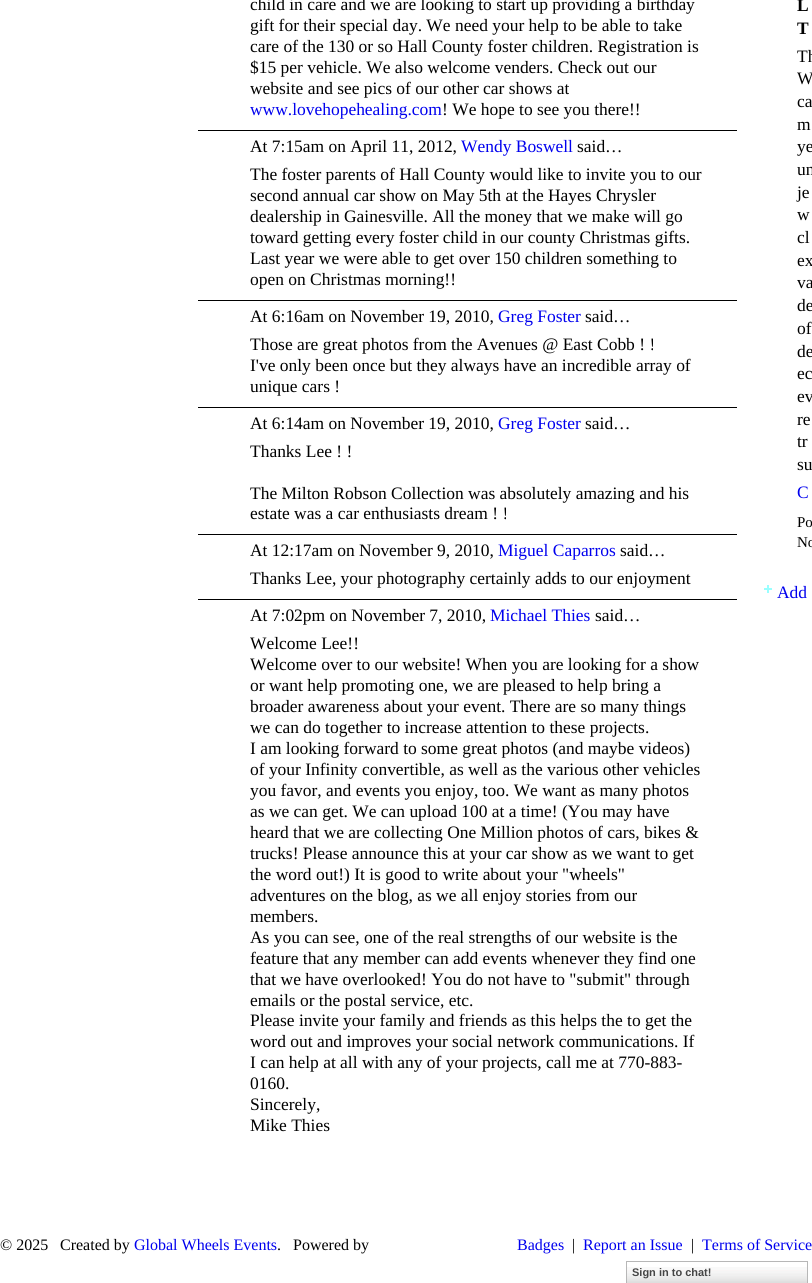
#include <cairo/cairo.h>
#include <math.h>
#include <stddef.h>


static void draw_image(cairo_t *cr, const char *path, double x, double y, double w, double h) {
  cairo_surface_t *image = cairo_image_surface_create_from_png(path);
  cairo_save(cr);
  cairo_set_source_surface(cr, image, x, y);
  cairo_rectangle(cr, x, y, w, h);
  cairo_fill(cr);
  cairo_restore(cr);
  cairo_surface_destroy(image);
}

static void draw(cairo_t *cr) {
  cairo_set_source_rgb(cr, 1, 1, 1);
  cairo_paint(cr);
  cairo_set_source_rgb(cr, 0, 0, 0);
  cairo_rectangle(cr, 198, 130, 539, 1);
  cairo_fill(cr);
  cairo_rectangle(cr, 198, 300, 539, 1);
  cairo_fill(cr);
  cairo_rectangle(cr, 198, 407, 539, 1);
  cairo_fill(cr);
  cairo_rectangle(cr, 198, 534, 539, 1);
  cairo_fill(cr);
  cairo_rectangle(cr, 198, 599, 539, 1);
  cairo_fill(cr);
  draw_image(cr, "images/1.png", 764, 585, 8, 8);
  draw_image(cr, "images/2.png", 627, 1267, 180, 16);
  cairo_rectangle(cr, 626.5, 1261.5, 181, 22);
  cairo_set_source_rgb(cr, 183 / 255.0, 183 / 255.0, 183 / 255.0);
  cairo_set_line_width(cr, 1);
  cairo_stroke(cr);
  cairo_select_font_face(cr, "Liberation Serif", CAIRO_FONT_SLANT_NORMAL, CAIRO_FONT_WEIGHT_NORMAL);
  cairo_set_font_size(cr, 17.45);
  cairo_set_source_rgb(cr, 0, 0, 0);
  cairo_move_to(cr, 250, 10);
  cairo_show_text(cr, "child in care and we are looking to start up providing a birthday");
  cairo_move_to(cr, 250, 31);
  cairo_show_text(cr, "gift for their special day. We need your help to be able to take");
  cairo_move_to(cr, 250, 52);
  cairo_show_text(cr, "care of the 130 or so Hall County foster children. Registration is");
  cairo_move_to(cr, 250, 73);
  cairo_show_text(cr, "$15 per vehicle. We also welcome venders. Check out our");
  cairo_move_to(cr, 250, 94);
  cairo_show_text(cr, "website and see pics of our other car shows at");
  cairo_set_source_rgb(cr, 0, 0, 238 / 255.0);
  cairo_move_to(cr, 250, 115);
  cairo_show_text(cr, "www.lovehopehealing.com");
  cairo_set_source_rgb(cr, 0, 0, 0);
  cairo_move_to(cr, 442, 115);
  cairo_show_text(cr, "! We hope to see you there!!");
  cairo_move_to(cr, 250, 152);
  cairo_show_text(cr, "At 7:15am on April 11, 2012,");
  cairo_set_source_rgb(cr, 0, 0, 238 / 255.0);
  cairo_move_to(cr, 461, 152);
  cairo_show_text(cr, "Wendy Boswell");
  cairo_set_source_rgb(cr, 0, 0, 0);
  cairo_move_to(cr, 577, 152);
  cairo_show_text(cr, "said…");
  cairo_move_to(cr, 250, 180);
  cairo_show_text(cr, "The foster parents of Hall County would like to invite you to our");
  cairo_move_to(cr, 250, 201);
  cairo_show_text(cr, "second annual car show on May 5th at the Hayes Chrysler");
  cairo_move_to(cr, 250, 222);
  cairo_show_text(cr, "dealership in Gainesville. All the money that we make will go");
  cairo_move_to(cr, 250, 243);
  cairo_show_text(cr, "toward getting every foster child in our county Christmas gifts.");
  cairo_move_to(cr, 250, 264);
  cairo_show_text(cr, "Last year we were able to get over 150 children something to");
  cairo_move_to(cr, 250, 285);
  cairo_show_text(cr, "open on Christmas morning!!");
  cairo_move_to(cr, 250, 322);
  cairo_show_text(cr, "At 6:16am on November 19, 2010,");
  cairo_set_source_rgb(cr, 0, 0, 238 / 255.0);
  cairo_move_to(cr, 498, 322);
  cairo_show_text(cr, "Greg Foster");
  cairo_set_source_rgb(cr, 0, 0, 0);
  cairo_move_to(cr, 585, 322);
  cairo_show_text(cr, "said…");
  cairo_move_to(cr, 250, 350);
  cairo_show_text(cr, "Those are great photos from the Avenues @ East Cobb ! !");
  cairo_move_to(cr, 250, 371);
  cairo_show_text(cr, "I've only been once but they always have an incredible array of");
  cairo_move_to(cr, 250, 392);
  cairo_show_text(cr, "unique cars !");
  cairo_move_to(cr, 250, 429);
  cairo_show_text(cr, "At 6:14am on November 19, 2010,");
  cairo_set_source_rgb(cr, 0, 0, 238 / 255.0);
  cairo_move_to(cr, 498, 429);
  cairo_show_text(cr, "Greg Foster");
  cairo_set_source_rgb(cr, 0, 0, 0);
  cairo_move_to(cr, 585, 429);
  cairo_show_text(cr, "said…");
  cairo_move_to(cr, 250, 457);
  cairo_show_text(cr, "Thanks Lee ! !");
  cairo_move_to(cr, 250, 499);
  cairo_show_text(cr, "The Milton Robson Collection was absolutely amazing and his");
  cairo_move_to(cr, 250, 519);
  cairo_show_text(cr, "estate was a car enthusiasts dream ! !");
  cairo_move_to(cr, 250, 556);
  cairo_show_text(cr, "At 12:17am on November 9, 2010,");
  cairo_set_source_rgb(cr, 0, 0, 238 / 255.0);
  cairo_move_to(cr, 498, 556);
  cairo_show_text(cr, "Miguel Caparros");
  cairo_set_source_rgb(cr, 0, 0, 0);
  cairo_move_to(cr, 620, 556);
  cairo_show_text(cr, "said…");
  cairo_move_to(cr, 250, 584);
  cairo_show_text(cr, "Thanks Lee, your photography certainly adds to our enjoyment");
  cairo_move_to(cr, 250, 621);
  cairo_show_text(cr, "At 7:02pm on November 7, 2010,");
  cairo_set_source_rgb(cr, 0, 0, 238 / 255.0);
  cairo_move_to(cr, 490, 621);
  cairo_show_text(cr, "Michael Thies");
  cairo_set_source_rgb(cr, 0, 0, 0);
  cairo_move_to(cr, 595, 621);
  cairo_show_text(cr, "said…");
  cairo_move_to(cr, 250, 649);
  cairo_show_text(cr, "Welcome Lee!!");
  cairo_move_to(cr, 250, 670);
  cairo_show_text(cr, "Welcome over to our website! When you are looking for a show");
  cairo_move_to(cr, 250, 691);
  cairo_show_text(cr, "or want help promoting one, we are pleased to help bring a");
  cairo_move_to(cr, 250, 712);
  cairo_show_text(cr, "broader awareness about your event. There are so many things");
  cairo_move_to(cr, 250, 733);
  cairo_show_text(cr, "we can do together to increase attention to these projects.");
  cairo_move_to(cr, 250, 754);
  cairo_show_text(cr, "I am looking forward to some great photos (and maybe videos)");
  cairo_move_to(cr, 250, 775);
  cairo_show_text(cr, "of your Infinity convertible, as well as the various other vehicles");
  cairo_move_to(cr, 250, 796);
  cairo_show_text(cr, "you favor, and events you enjoy, too. We want as many photos");
  cairo_move_to(cr, 250, 817);
  cairo_show_text(cr, "as we can get. We can upload 100 at a time! (You may have");
  cairo_move_to(cr, 250, 838);
  cairo_show_text(cr, "heard that we are collecting One Million photos of cars, bikes &");
  cairo_move_to(cr, 250, 859);
  cairo_show_text(cr, "trucks! Please announce this at your car show as we want to get");
  cairo_move_to(cr, 250, 880);
  cairo_show_text(cr, "the word out!) It is good to write about your \"wheels\"");
  cairo_move_to(cr, 250, 901);
  cairo_show_text(cr, "adventures on the blog, as we all enjoy stories from our");
  cairo_move_to(cr, 250, 922);
  cairo_show_text(cr, "members.");
  cairo_move_to(cr, 250, 943);
  cairo_show_text(cr, "As you can see, one of the real strengths of our website is the");
  cairo_move_to(cr, 250, 964);
  cairo_show_text(cr, "feature that any member can add events whenever they find one");
  cairo_move_to(cr, 250, 985);
  cairo_show_text(cr, "that we have overlooked! You do not have to \"submit\" through");
  cairo_move_to(cr, 250, 1006);
  cairo_show_text(cr, "emails or the postal service, etc.");
  cairo_move_to(cr, 250, 1026);
  cairo_show_text(cr, "Please invite your family and friends as this helps the to get the");
  cairo_move_to(cr, 250, 1047);
  cairo_show_text(cr, "word out and improves your social network communications. If");
  cairo_move_to(cr, 250, 1068);
  cairo_show_text(cr, "I can help at all with any of your projects, call me at 770-883-");
  cairo_move_to(cr, 250, 1089);
  cairo_show_text(cr, "0160.");
  cairo_move_to(cr, 250, 1110);
  cairo_show_text(cr, "Sincerely,");
  cairo_move_to(cr, 250, 1131);
  cairo_show_text(cr, "Mike Thies");
  cairo_select_font_face(cr, "Liberation Serif", CAIRO_FONT_SLANT_NORMAL, CAIRO_FONT_WEIGHT_BOLD);
  cairo_move_to(cr, 797, 11);
  cairo_show_text(cr, "L");
  cairo_move_to(cr, 797, 34);
  cairo_show_text(cr, "T");
  cairo_select_font_face(cr, "Liberation Serif", CAIRO_FONT_SLANT_NORMAL, CAIRO_FONT_WEIGHT_NORMAL);
  cairo_move_to(cr, 797, 62);
  cairo_show_text(cr, "Th");
  cairo_move_to(cr, 797, 84);
  cairo_show_text(cr, "W");
  cairo_move_to(cr, 797, 107);
  cairo_show_text(cr, "ca");
  cairo_move_to(cr, 797, 130);
  cairo_show_text(cr, "m");
  cairo_move_to(cr, 797, 152);
  cairo_show_text(cr, "ye");
  cairo_move_to(cr, 797, 175);
  cairo_show_text(cr, "un");
  cairo_move_to(cr, 797, 198);
  cairo_show_text(cr, "je");
  cairo_move_to(cr, 797, 220);
  cairo_show_text(cr, "w");
  cairo_move_to(cr, 797, 243);
  cairo_show_text(cr, "cl");
  cairo_move_to(cr, 797, 266);
  cairo_show_text(cr, "ex");
  cairo_move_to(cr, 797, 288);
  cairo_show_text(cr, "va");
  cairo_move_to(cr, 797, 311);
  cairo_show_text(cr, "de");
  cairo_move_to(cr, 797, 334);
  cairo_show_text(cr, "of");
  cairo_move_to(cr, 797, 357);
  cairo_show_text(cr, "de");
  cairo_move_to(cr, 797, 379);
  cairo_show_text(cr, "ec");
  cairo_move_to(cr, 797, 402);
  cairo_show_text(cr, "ev");
  cairo_move_to(cr, 797, 425);
  cairo_show_text(cr, "re");
  cairo_move_to(cr, 797, 447);
  cairo_show_text(cr, "tr");
  cairo_move_to(cr, 797, 470);
  cairo_show_text(cr, "su");
  cairo_set_source_rgb(cr, 0, 0, 238 / 255.0);
  cairo_move_to(cr, 797, 498);
  cairo_show_text(cr, "C");
  cairo_set_font_size(cr, 15);
  cairo_set_source_rgb(cr, 0, 0, 0);
  cairo_move_to(cr, 797, 527);
  cairo_show_text(cr, "Po");
  cairo_move_to(cr, 797, 547);
  cairo_show_text(cr, "No");
  cairo_set_font_size(cr, 17.45);
  cairo_set_source_rgb(cr, 0, 0, 238 / 255.0);
  cairo_move_to(cr, 777, 598);
  cairo_show_text(cr, "Add");
  cairo_set_font_size(cr, 16);
  cairo_set_source_rgb(cr, 0, 0, 0);
  cairo_move_to(cr, 0, 1250);
  cairo_show_text(cr, "© 2025");
  cairo_move_to(cr, 60, 1250);
  cairo_show_text(cr, "Created by");
  cairo_set_source_rgb(cr, 0, 0, 238 / 255.0);
  cairo_move_to(cr, 134, 1250);
  cairo_show_text(cr, "Global Wheels Events");
  cairo_set_source_rgb(cr, 0, 0, 0);
  cairo_move_to(cr, 277, 1250);
  cairo_show_text(cr, ".");
  cairo_move_to(cr, 293, 1250);
  cairo_show_text(cr, "Powered by");
  cairo_set_source_rgb(cr, 0, 0, 238 / 255.0);
  cairo_move_to(cr, 517, 1250);
  cairo_show_text(cr, "Badges");
  cairo_set_source_rgb(cr, 0, 0, 0);
  cairo_move_to(cr, 572, 1250);
  cairo_show_text(cr, "|");
  cairo_set_source_rgb(cr, 0, 0, 238 / 255.0);
  cairo_move_to(cr, 583, 1250);
  cairo_show_text(cr, "Report an Issue");
  cairo_set_source_rgb(cr, 0, 0, 0);
  cairo_move_to(cr, 691, 1250);
  cairo_show_text(cr, "|");
  cairo_set_source_rgb(cr, 0, 0, 238 / 255.0);
  cairo_move_to(cr, 702, 1250);
  cairo_show_text(cr, "Terms of Service");
  cairo_select_font_face(cr, "Liberation Sans", CAIRO_FONT_SLANT_NORMAL, CAIRO_FONT_WEIGHT_BOLD);
  cairo_set_font_size(cr, 11);
  cairo_set_source_rgb(cr, 69 / 255.0, 69 / 255.0, 69 / 255.0);
  cairo_move_to(cr, 632, 1276);
  cairo_show_text(cr, "Sign in to chat!");
}

int main(void) {
  cairo_surface_t *surface = cairo_image_surface_create(CAIRO_FORMAT_RGB24, 812, 1283);
  cairo_t *cr = cairo_create(surface);
  cairo_font_options_t *options = cairo_font_options_create();
  cairo_font_options_set_hint_metrics(options, CAIRO_HINT_METRICS_OFF);
  cairo_font_options_set_hint_style(options, CAIRO_HINT_STYLE_NONE);
  cairo_set_font_options(cr, options);
  cairo_set_miter_limit(cr, 4);
  draw(cr);
  cairo_surface_write_to_png(surface, "out.png");
  cairo_font_options_destroy(options);
  cairo_destroy(cr);
  cairo_surface_destroy(surface);
  return 0;
}
